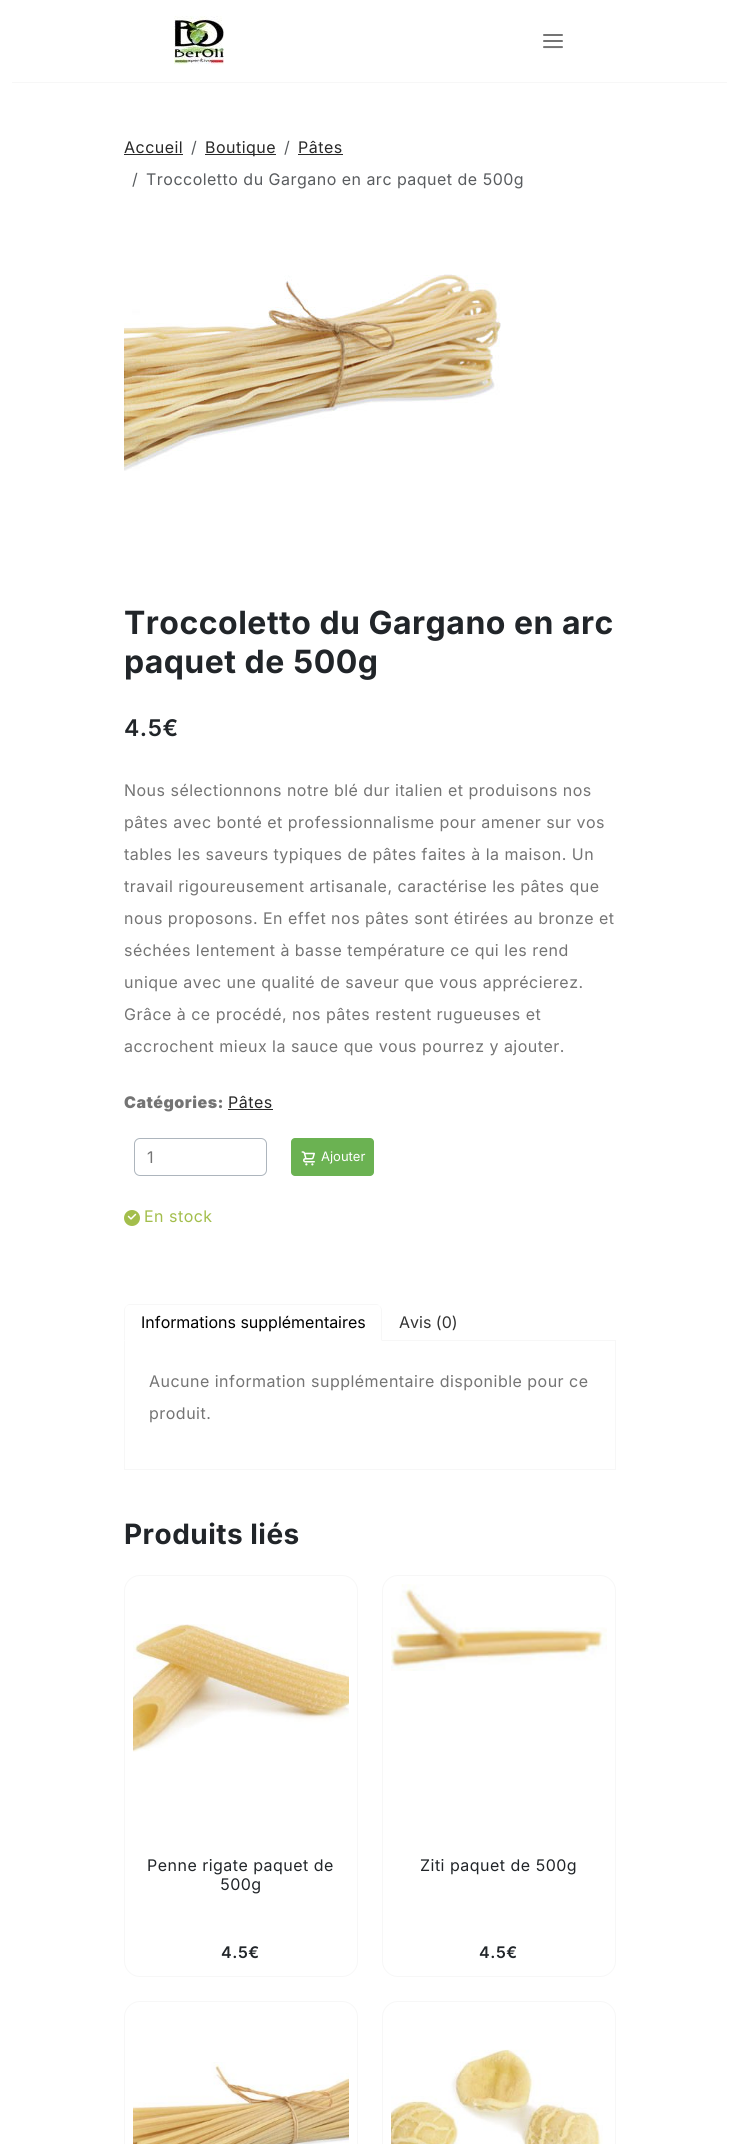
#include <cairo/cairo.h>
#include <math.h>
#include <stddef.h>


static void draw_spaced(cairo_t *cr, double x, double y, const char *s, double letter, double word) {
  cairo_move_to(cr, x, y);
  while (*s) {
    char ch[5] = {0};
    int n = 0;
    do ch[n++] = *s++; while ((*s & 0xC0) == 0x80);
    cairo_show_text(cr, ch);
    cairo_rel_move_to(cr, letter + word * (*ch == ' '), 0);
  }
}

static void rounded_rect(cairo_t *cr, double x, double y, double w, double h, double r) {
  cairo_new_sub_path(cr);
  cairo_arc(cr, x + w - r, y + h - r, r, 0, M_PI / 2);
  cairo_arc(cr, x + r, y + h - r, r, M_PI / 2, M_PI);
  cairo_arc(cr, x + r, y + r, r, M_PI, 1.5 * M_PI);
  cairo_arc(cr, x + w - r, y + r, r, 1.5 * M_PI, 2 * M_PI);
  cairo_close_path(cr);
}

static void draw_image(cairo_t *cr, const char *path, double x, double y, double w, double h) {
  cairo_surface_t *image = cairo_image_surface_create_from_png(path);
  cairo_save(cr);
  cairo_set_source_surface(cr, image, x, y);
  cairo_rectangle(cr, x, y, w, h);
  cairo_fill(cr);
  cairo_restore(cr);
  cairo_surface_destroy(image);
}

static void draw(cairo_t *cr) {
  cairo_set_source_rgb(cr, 1, 1, 1);
  cairo_paint(cr);
  cairo_set_source_rgb(cr, 247 / 255.0, 247 / 255.0, 247 / 255.0);
  cairo_rectangle(cr, 12, 82, 715, 1);
  cairo_fill(cr);
  draw_image(cr, "images/1.png", 174, 16, 50, 49);
  draw_image(cr, "images/2.png", 543, 34, 20, 15);
  cairo_set_source_rgb(cr, 40 / 255.0, 40 / 255.0, 40 / 255.0);
  cairo_rectangle(cr, 124, 154, 59, 1);
  cairo_fill(cr);
  cairo_rectangle(cr, 205, 154, 71, 1);
  cairo_fill(cr);
  cairo_rectangle(cr, 298, 154, 45, 1);
  cairo_fill(cr);
  draw_image(cr, "images/3.png", 124, 274, 377, 197);
  cairo_rectangle(cr, 228, 1109, 45, 1);
  cairo_fill(cr);
  rounded_rect(cr, 134.5, 1138.5, 132, 37, 5.5);
  cairo_set_source_rgb(cr, 173 / 255.0, 181 / 255.0, 189 / 255.0);
  cairo_set_line_width(cr, 1);
  cairo_stroke(cr);
  cairo_set_source_rgb(cr, 107 / 255.0, 178 / 255.0, 82 / 255.0);
  rounded_rect(cr, 291, 1138, 83, 38, 4);
  cairo_fill(cr);
  draw_image(cr, "images/4.png", 301, 1151, 14, 15);
  draw_image(cr, "images/5.png", 124, 1210, 16, 16);
  cairo_set_source_rgb(cr, 247 / 255.0, 247 / 255.0, 247 / 255.0);
  cairo_rectangle(cr, 382, 1340, 234, 1);
  cairo_fill(cr);
  cairo_new_path(cr);
  cairo_move_to(cr, 130, 1304);
  cairo_curve_to(cr, 128, 1304, 127, 1305, 126, 1306);
  cairo_line_to(cr, 129, 1305);
  cairo_line_to(cr, 376, 1305);
  cairo_curve_to(cr, 377, 1305, 379, 1305, 380, 1306);
  cairo_curve_to(cr, 379, 1305, 378, 1304, 376, 1304);
  cairo_close_path(cr);
  cairo_fill(cr);
  cairo_new_path(cr);
  cairo_move_to(cr, 382, 1341);
  cairo_line_to(cr, 382, 1310);
  cairo_curve_to(cr, 382, 1308.5, 381, 1307, 380, 1306);
  cairo_line_to(cr, 379.5, 1306.5);
  cairo_curve_to(cr, 380.5, 1307, 381, 1308.5, 381, 1310);
  cairo_line_to(cr, 381, 1340);
  cairo_close_path(cr);
  cairo_fill(cr);
  cairo_new_path(cr);
  cairo_move_to(cr, 124, 1341);
  cairo_line_to(cr, 125, 1340);
  cairo_line_to(cr, 125, 1310);
  cairo_curve_to(cr, 125, 1308.5, 125.5, 1307, 126.5, 1306.5);
  cairo_line_to(cr, 126, 1306);
  cairo_curve_to(cr, 125, 1307, 124, 1308.5, 124, 1310);
  cairo_close_path(cr);
  cairo_fill(cr);
  cairo_rectangle(cr, 615, 1341, 1, 129);
  cairo_fill(cr);
  cairo_rectangle(cr, 124, 1469, 492, 1);
  cairo_fill(cr);
  cairo_rectangle(cr, 124, 1341, 1, 129);
  cairo_fill(cr);
  rounded_rect(cr, 124.5, 1575.5, 233, 401, 15.5);
  cairo_stroke(cr);
  draw_image(cr, "images/6.png", 133, 1624, 216, 128);
  rounded_rect(cr, 382.5, 1575.5, 233, 401, 15.5);
  cairo_stroke(cr);
  draw_image(cr, "images/7.png", 391, 1584, 216, 87);
  rounded_rect(cr, 124.5, 2001.5, 233, 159, 15.5);
  cairo_stroke(cr);
  draw_image(cr, "images/8.png", 133, 2062, 216, 82);
  rounded_rect(cr, 382.5, 2001.5, 233, 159, 15.5);
  cairo_stroke(cr);
  draw_image(cr, "images/9.png", 391, 2049, 212, 95);
  cairo_select_font_face(cr, "Inter", CAIRO_FONT_SLANT_NORMAL, CAIRO_FONT_WEIGHT_NORMAL);
  cairo_set_font_size(cr, 16);
  cairo_set_source_rgb(cr, 40 / 255.0, 40 / 255.0, 40 / 255.0);
  draw_spaced(cr, 124, 153, "Accueil", 0.48, 0);
  cairo_set_source_rgb(cr, 89 / 255.0, 92 / 255.0, 95 / 255.0);
  draw_spaced(cr, 191, 153, "/", 0.48, 0);
  cairo_set_source_rgb(cr, 40 / 255.0, 40 / 255.0, 40 / 255.0);
  draw_spaced(cr, 205, 153, "Boutique", 0.48, 0);
  cairo_set_source_rgb(cr, 89 / 255.0, 92 / 255.0, 95 / 255.0);
  draw_spaced(cr, 284, 153, "/", 0.48, 0);
  cairo_set_source_rgb(cr, 40 / 255.0, 40 / 255.0, 40 / 255.0);
  draw_spaced(cr, 298, 153, "Pâtes", 0.48, 0);
  cairo_set_source_rgb(cr, 89 / 255.0, 92 / 255.0, 95 / 255.0);
  draw_spaced(cr, 132, 185, "/", 0.48, 0);
  draw_spaced(cr, 146, 185, "Troccoletto du Gargano en arc paquet de 500g", 0.48, 0);
  cairo_select_font_face(cr, "Inter", CAIRO_FONT_SLANT_NORMAL, CAIRO_FONT_WEIGHT_BOLD);
  cairo_set_font_size(cr, 32);
  cairo_set_source_rgb(cr, 33 / 255.0, 37 / 255.0, 41 / 255.0);
  draw_spaced(cr, 124, 634, "Troccoletto du Gargano en arc", 0.48, 0);
  draw_spaced(cr, 124, 673, "paquet de 500g", 0.48, 0);
  cairo_select_font_face(cr, "Inter SemiBold", CAIRO_FONT_SLANT_NORMAL, CAIRO_FONT_WEIGHT_NORMAL);
  cairo_set_font_size(cr, 23);
  draw_spaced(cr, 124, 736, "4.5€", 0.48, 0);
  cairo_select_font_face(cr, "Inter", CAIRO_FONT_SLANT_NORMAL, CAIRO_FONT_WEIGHT_NORMAL);
  cairo_set_font_size(cr, 16);
  cairo_set_source_rgb(cr, 116 / 255.0, 116 / 255.0, 116 / 255.0);
  draw_spaced(cr, 124, 796, "Nous sélectionnons notre blé dur italien et produisons nos", 0.48, 0);
  draw_spaced(cr, 124, 828, "pâtes avec bonté et professionnalisme pour amener sur vos", 0.48, 0);
  draw_spaced(cr, 124, 860, "tables les saveurs typiques de pâtes faites à la maison. Un", 0.48, 0);
  draw_spaced(cr, 124, 892, "travail rigoureusement artisanale, caractérise les pâtes que", 0.48, 0);
  draw_spaced(cr, 124, 924, "nous proposons. En effet nos pâtes sont étirées au bronze et", 0.48, 0);
  draw_spaced(cr, 124, 956, "séchées lentement à basse température ce qui les rend", 0.48, 0);
  draw_spaced(cr, 124, 988, "unique avec une qualité de saveur que vous apprécierez.", 0.48, 0);
  draw_spaced(cr, 124, 1020, "Grâce à ce procédé, nos pâtes restent rugueuses et", 0.48, 0);
  draw_spaced(cr, 124, 1052, "accrochent mieux la sauce que vous pourrez y ajouter.", 0.48, 0);
  cairo_select_font_face(cr, "Inter Black", CAIRO_FONT_SLANT_NORMAL, CAIRO_FONT_WEIGHT_NORMAL);
  draw_spaced(cr, 124, 1108, "Catégories:", 0.48, 0);
  cairo_select_font_face(cr, "Inter", CAIRO_FONT_SLANT_NORMAL, CAIRO_FONT_WEIGHT_NORMAL);
  cairo_set_source_rgb(cr, 40 / 255.0, 40 / 255.0, 40 / 255.0);
  draw_spaced(cr, 228, 1108, "Pâtes", 0.48, 0);
  cairo_set_source_rgb(cr, 116 / 255.0, 116 / 255.0, 116 / 255.0);
  cairo_move_to(cr, 147, 1163);
  cairo_show_text(cr, "1");
  cairo_set_font_size(cr, 13);
  cairo_set_source_rgb(cr, 1, 1, 1);
  cairo_move_to(cr, 321, 1161);
  cairo_show_text(cr, "Ajouter");
  cairo_set_font_size(cr, 16);
  cairo_set_source_rgb(cr, 163 / 255.0, 190 / 255.0, 76 / 255.0);
  draw_spaced(cr, 144, 1222, "En stock", 0.48, 0);
  cairo_set_source_rgb(cr, 0, 0, 0);
  cairo_move_to(cr, 141, 1328);
  cairo_show_text(cr, "Informations supplémentaires");
  cairo_set_source_rgb(cr, 51 / 255.0, 51 / 255.0, 51 / 255.0);
  cairo_move_to(cr, 399, 1328);
  cairo_show_text(cr, "Avis (0)");
  cairo_set_source_rgb(cr, 116 / 255.0, 116 / 255.0, 116 / 255.0);
  draw_spaced(cr, 149, 1387, "Aucune information supplémentaire disponible pour ce", 0.48, 0);
  draw_spaced(cr, 149, 1419, "produit.", 0.48, 0);
  cairo_select_font_face(cr, "Inter", CAIRO_FONT_SLANT_NORMAL, CAIRO_FONT_WEIGHT_BOLD);
  cairo_set_font_size(cr, 28);
  cairo_set_source_rgb(cr, 33 / 255.0, 37 / 255.0, 41 / 255.0);
  draw_spaced(cr, 124, 1544, "Produits liés", 0.48, 0);
  cairo_select_font_face(cr, "Inter", CAIRO_FONT_SLANT_NORMAL, CAIRO_FONT_WEIGHT_NORMAL);
  cairo_set_font_size(cr, 16);
  draw_spaced(cr, 147, 1871, "Penne rigate paquet de", 0.48, 0);
  draw_spaced(cr, 220, 1890, "500g", 0.48, 0);
  cairo_select_font_face(cr, "Inter SemiBold", CAIRO_FONT_SLANT_NORMAL, CAIRO_FONT_WEIGHT_NORMAL);
  draw_spaced(cr, 221, 1958, "4.5€", 0.48, 0);
  cairo_select_font_face(cr, "Inter", CAIRO_FONT_SLANT_NORMAL, CAIRO_FONT_WEIGHT_NORMAL);
  draw_spaced(cr, 420, 1871, "Ziti paquet de 500g", 0.48, 0);
  cairo_select_font_face(cr, "Inter SemiBold", CAIRO_FONT_SLANT_NORMAL, CAIRO_FONT_WEIGHT_NORMAL);
  draw_spaced(cr, 479, 1958, "4.5€", 0.48, 0);
}

int main(void) {
  cairo_surface_t *surface = cairo_image_surface_create(CAIRO_FORMAT_RGB24, 739, 2144);
  cairo_t *cr = cairo_create(surface);
  cairo_font_options_t *options = cairo_font_options_create();
  cairo_font_options_set_hint_metrics(options, CAIRO_HINT_METRICS_OFF);
  cairo_font_options_set_hint_style(options, CAIRO_HINT_STYLE_NONE);
  cairo_set_font_options(cr, options);
  cairo_set_miter_limit(cr, 4);
  draw(cr);
  cairo_surface_write_to_png(surface, "out.png");
  cairo_font_options_destroy(options);
  cairo_destroy(cr);
  cairo_surface_destroy(surface);
  return 0;
}
